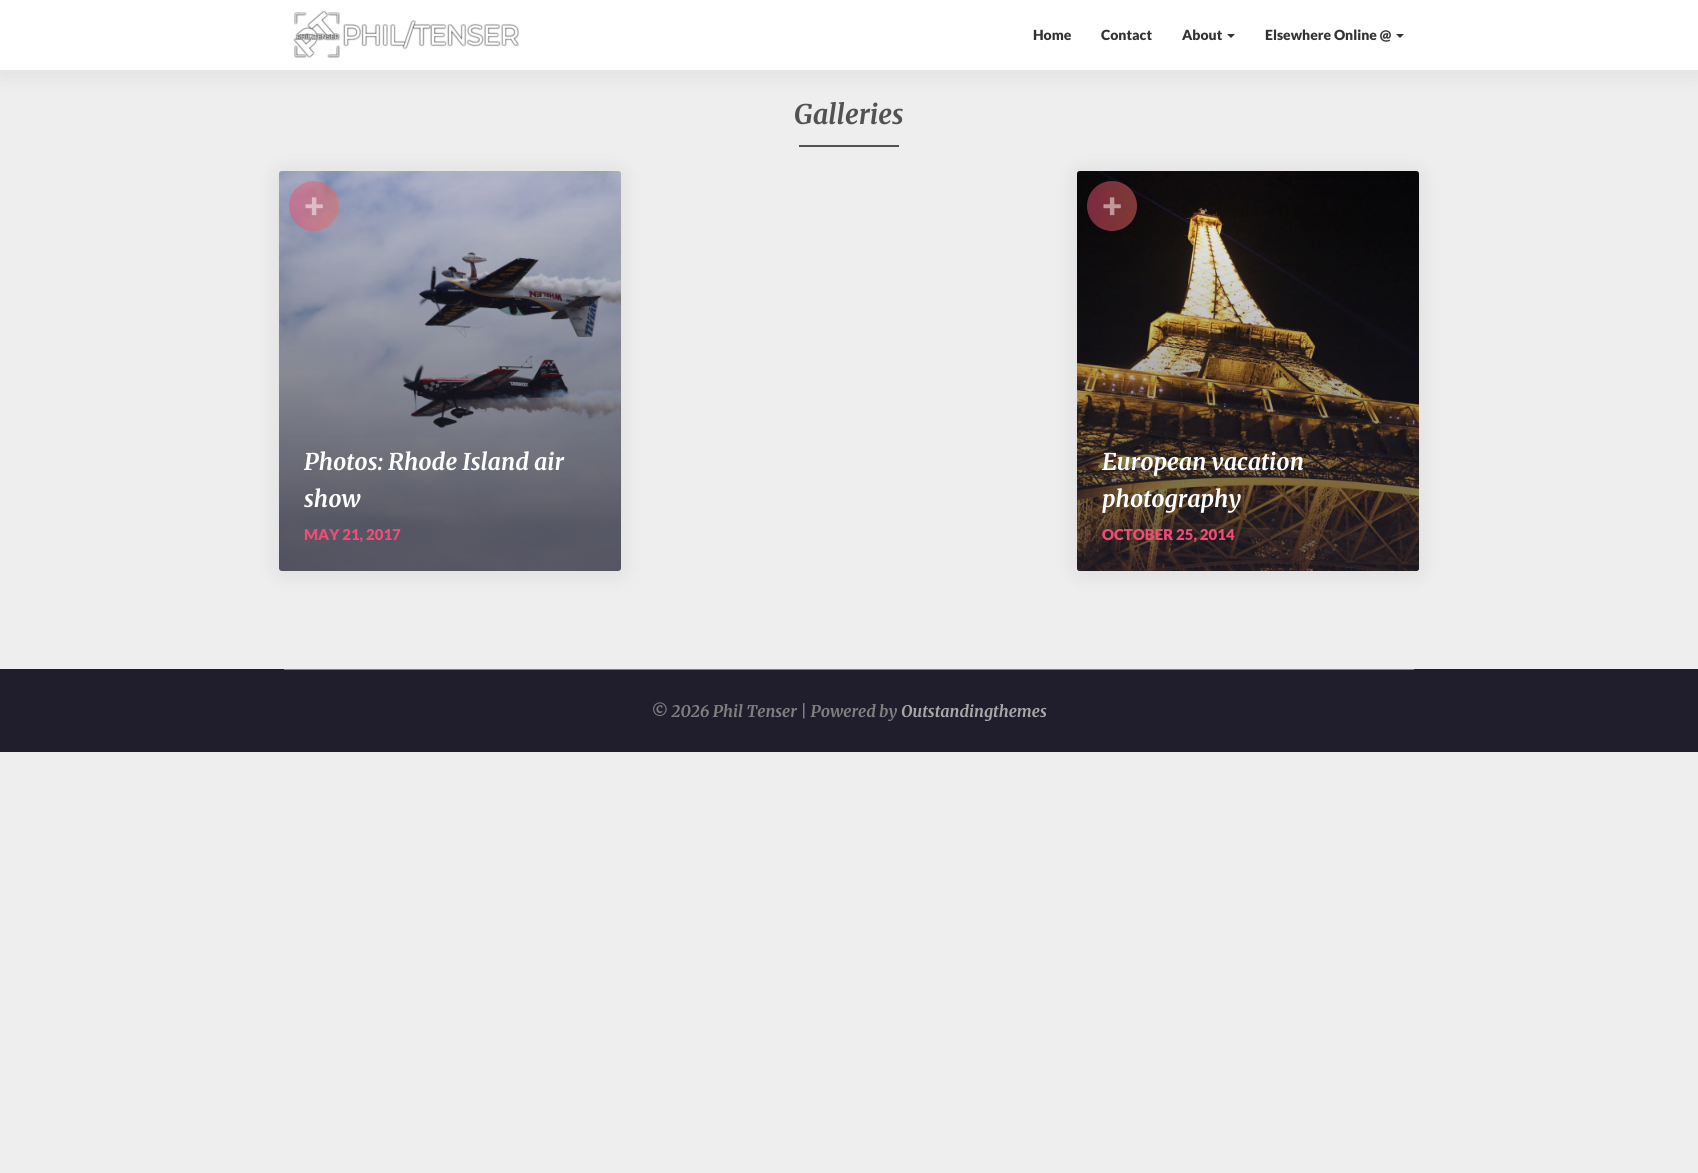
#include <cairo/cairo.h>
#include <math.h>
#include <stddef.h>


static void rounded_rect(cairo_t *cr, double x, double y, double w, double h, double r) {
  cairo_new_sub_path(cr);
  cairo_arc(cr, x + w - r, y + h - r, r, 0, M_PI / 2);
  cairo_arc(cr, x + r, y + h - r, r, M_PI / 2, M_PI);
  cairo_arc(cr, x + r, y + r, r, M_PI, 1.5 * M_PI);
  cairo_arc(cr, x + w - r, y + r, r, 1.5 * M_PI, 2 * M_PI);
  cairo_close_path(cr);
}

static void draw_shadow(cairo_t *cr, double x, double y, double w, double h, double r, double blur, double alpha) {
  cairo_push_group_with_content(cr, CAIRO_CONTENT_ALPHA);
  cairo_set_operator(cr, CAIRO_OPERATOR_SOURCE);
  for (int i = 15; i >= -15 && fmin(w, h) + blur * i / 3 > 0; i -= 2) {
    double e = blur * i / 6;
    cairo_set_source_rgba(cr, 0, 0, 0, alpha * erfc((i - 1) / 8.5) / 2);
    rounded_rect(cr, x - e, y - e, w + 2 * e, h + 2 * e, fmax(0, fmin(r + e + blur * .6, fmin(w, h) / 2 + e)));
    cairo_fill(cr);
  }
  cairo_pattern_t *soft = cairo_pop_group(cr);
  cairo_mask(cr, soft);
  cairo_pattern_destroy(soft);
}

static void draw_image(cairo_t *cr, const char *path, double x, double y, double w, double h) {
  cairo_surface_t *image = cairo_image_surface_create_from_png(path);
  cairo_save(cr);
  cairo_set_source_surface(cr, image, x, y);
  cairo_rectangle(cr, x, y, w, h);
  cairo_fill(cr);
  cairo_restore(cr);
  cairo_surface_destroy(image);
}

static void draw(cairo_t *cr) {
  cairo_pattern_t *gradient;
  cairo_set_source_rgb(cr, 238 / 255.0, 238 / 255.0, 238 / 255.0);
  cairo_paint(cr);
  cairo_set_source_rgb(cr, 0, 0, 0);
  draw_shadow(cr, 0, 2, 1698, 70, 0, 12.5, 0.08);
  cairo_set_source_rgb(cr, 1, 1, 1);
  cairo_rectangle(cr, 0, 0, 1698, 70);
  cairo_fill(cr);
  draw_image(cr, "images/1.png", 293, 10, 226, 48);
  cairo_set_source_rgb(cr, 51 / 255.0, 51 / 255.0, 51 / 255.0);
  cairo_new_path(cr);
  cairo_move_to(cr, 1227, 34);
  cairo_line_to(cr, 1235, 34);
  cairo_line_to(cr, 1231, 38);
  cairo_close_path(cr);
  cairo_fill(cr);
  cairo_new_path(cr);
  cairo_move_to(cr, 1396, 34);
  cairo_line_to(cr, 1404, 34);
  cairo_line_to(cr, 1400, 38);
  cairo_close_path(cr);
  cairo_fill(cr);
  cairo_set_source_rgb(cr, 82 / 255.0, 82 / 255.0, 82 / 255.0);
  cairo_rectangle(cr, 799, 145, 100, 2);
  cairo_fill(cr);
  cairo_set_source_rgb(cr, 0, 0, 0);
  draw_shadow(cr, 279, 173, 342, 400, 3, 12.5, 0.08);
  draw_image(cr, "images/2.png", 279, 171, 342, 400);
  gradient = cairo_pattern_create_linear(450, 171, 450, 571);
  cairo_pattern_add_color_stop_rgba(gradient, 0, 32 / 255.0, 30 / 255.0, 44 / 255.0, 0);
  cairo_pattern_add_color_stop_rgba(gradient, 0.88, 32 / 255.0, 30 / 255.0, 44 / 255.0, 0.64);
  cairo_pattern_add_color_stop_rgba(gradient, 0.89, 32 / 255.0, 30 / 255.0, 44 / 255.0, 0.65);
  cairo_set_source(cr, gradient);
  cairo_pattern_destroy(gradient);
  rounded_rect(cr, 279, 171, 342, 400, 3);
  cairo_fill(cr);
  gradient = cairo_pattern_create_linear(289, 206, 339, 206);
  cairo_pattern_add_color_stop_rgba(gradient, 0, 238 / 255.0, 77 / 255.0, 117 / 255.0, 0.5);
  cairo_pattern_add_color_stop_rgba(gradient, 1, 239 / 255.0, 107 / 255.0, 93 / 255.0, 0.5);
  cairo_set_source(cr, gradient);
  cairo_pattern_destroy(gradient);
  cairo_arc(cr, 314, 206, 25, 0, 2 * M_PI);
  cairo_fill(cr);
  cairo_set_source_rgb(cr, 0, 0, 0);
  draw_shadow(cr, 1077, 173, 342, 400, 3, 12.5, 0.08);
  draw_image(cr, "images/3.png", 1077, 171, 342, 400);
  gradient = cairo_pattern_create_linear(1248, 171, 1248, 571);
  cairo_pattern_add_color_stop_rgba(gradient, 0, 32 / 255.0, 30 / 255.0, 44 / 255.0, 0);
  cairo_pattern_add_color_stop_rgba(gradient, 0.88, 32 / 255.0, 30 / 255.0, 44 / 255.0, 0.64);
  cairo_pattern_add_color_stop_rgba(gradient, 0.89, 32 / 255.0, 30 / 255.0, 44 / 255.0, 0.65);
  cairo_set_source(cr, gradient);
  cairo_pattern_destroy(gradient);
  rounded_rect(cr, 1077, 171, 342, 400, 3);
  cairo_fill(cr);
  gradient = cairo_pattern_create_linear(1087, 206, 1137, 206);
  cairo_pattern_add_color_stop_rgba(gradient, 0, 238 / 255.0, 77 / 255.0, 117 / 255.0, 0.5);
  cairo_pattern_add_color_stop_rgba(gradient, 1, 239 / 255.0, 107 / 255.0, 93 / 255.0, 0.5);
  cairo_set_source(cr, gradient);
  cairo_pattern_destroy(gradient);
  cairo_arc(cr, 1112, 206, 25, 0, 2 * M_PI);
  cairo_fill(cr);
  cairo_set_source_rgb(cr, 32 / 255.0, 30 / 255.0, 44 / 255.0);
  cairo_rectangle(cr, 0, 669, 1698, 83);
  cairo_fill(cr);
  cairo_set_source_rgb(cr, 127 / 255.0, 127 / 255.0, 127 / 255.0);
  cairo_rectangle(cr, 284, 669, 1130, 1);
  cairo_fill(cr);
  cairo_select_font_face(cr, "Lato Black", CAIRO_FONT_SLANT_NORMAL, CAIRO_FONT_WEIGHT_NORMAL);
  cairo_set_font_size(cr, 14);
  cairo_set_source_rgb(cr, 51 / 255.0, 51 / 255.0, 51 / 255.0);
  cairo_move_to(cr, 1033, 40);
  cairo_show_text(cr, "Home");
  cairo_move_to(cr, 1101, 40);
  cairo_show_text(cr, "Contact");
  cairo_move_to(cr, 1182, 40);
  cairo_show_text(cr, "About");
  cairo_move_to(cr, 1265, 40);
  cairo_show_text(cr, "Elsewhere Online @");
  cairo_select_font_face(cr, "Merriweather Light", CAIRO_FONT_SLANT_ITALIC, CAIRO_FONT_WEIGHT_NORMAL);
  cairo_set_font_size(cr, 27);
  cairo_set_source_rgb(cr, 82 / 255.0, 82 / 255.0, 82 / 255.0);
  cairo_move_to(cr, 794, 124);
  cairo_show_text(cr, "Galleries");
  cairo_select_font_face(cr, "Lato Black", CAIRO_FONT_SLANT_NORMAL, CAIRO_FONT_WEIGHT_NORMAL);
  cairo_set_font_size(cr, 35);
  cairo_set_source_rgb(cr, 222 / 255.0, 188 / 255.0, 199 / 255.0);
  cairo_move_to(cr, 304, 218);
  cairo_show_text(cr, "+");
  cairo_select_font_face(cr, "Merriweather Light", CAIRO_FONT_SLANT_ITALIC, CAIRO_FONT_WEIGHT_NORMAL);
  cairo_set_font_size(cr, 23);
  cairo_set_source_rgb(cr, 1, 1, 1);
  cairo_move_to(cr, 304, 470);
  cairo_show_text(cr, "Photos: Rhode Island air");
  cairo_move_to(cr, 304, 507);
  cairo_show_text(cr, "show");
  cairo_select_font_face(cr, "Lato Black", CAIRO_FONT_SLANT_NORMAL, CAIRO_FONT_WEIGHT_NORMAL);
  cairo_set_font_size(cr, 15);
  cairo_set_source_rgb(cr, 240 / 255.0, 77 / 255.0, 117 / 255.0);
  cairo_move_to(cr, 304, 540);
  cairo_show_text(cr, "MAY 21, 2017");
  cairo_set_font_size(cr, 35);
  cairo_set_source_rgb(cr, 190 / 255.0, 153 / 255.0, 156 / 255.0);
  cairo_move_to(cr, 1102, 218);
  cairo_show_text(cr, "+");
  cairo_select_font_face(cr, "Merriweather Light", CAIRO_FONT_SLANT_ITALIC, CAIRO_FONT_WEIGHT_NORMAL);
  cairo_set_font_size(cr, 23);
  cairo_set_source_rgb(cr, 1, 1, 1);
  cairo_move_to(cr, 1102, 470);
  cairo_show_text(cr, "European vacation");
  cairo_move_to(cr, 1102, 507);
  cairo_show_text(cr, "photography");
  cairo_select_font_face(cr, "Lato Black", CAIRO_FONT_SLANT_NORMAL, CAIRO_FONT_WEIGHT_NORMAL);
  cairo_set_font_size(cr, 15);
  cairo_set_source_rgb(cr, 240 / 255.0, 77 / 255.0, 117 / 255.0);
  cairo_move_to(cr, 1102, 540);
  cairo_show_text(cr, "OCTOBER 25, 2014");
  cairo_select_font_face(cr, "Merriweather Light", CAIRO_FONT_SLANT_ITALIC, CAIRO_FONT_WEIGHT_NORMAL);
  cairo_set_font_size(cr, 16);
  cairo_set_source_rgb(cr, 127 / 255.0, 127 / 255.0, 127 / 255.0);
  cairo_move_to(cr, 651, 717);
  cairo_show_text(cr, "© 2026 Phil Tenser | Powered by");
  cairo_set_source_rgb(cr, 167 / 255.0, 167 / 255.0, 167 / 255.0);
  cairo_move_to(cr, 901, 717);
  cairo_show_text(cr, "Outstandingthemes");
}

int main(void) {
  cairo_surface_t *surface = cairo_image_surface_create(CAIRO_FORMAT_RGB24, 1698, 1173);
  cairo_t *cr = cairo_create(surface);
  cairo_font_options_t *options = cairo_font_options_create();
  cairo_font_options_set_hint_metrics(options, CAIRO_HINT_METRICS_OFF);
  cairo_font_options_set_hint_style(options, CAIRO_HINT_STYLE_NONE);
  cairo_set_font_options(cr, options);
  cairo_set_miter_limit(cr, 4);
  draw(cr);
  cairo_surface_write_to_png(surface, "out.png");
  cairo_font_options_destroy(options);
  cairo_destroy(cr);
  cairo_surface_destroy(surface);
  return 0;
}
